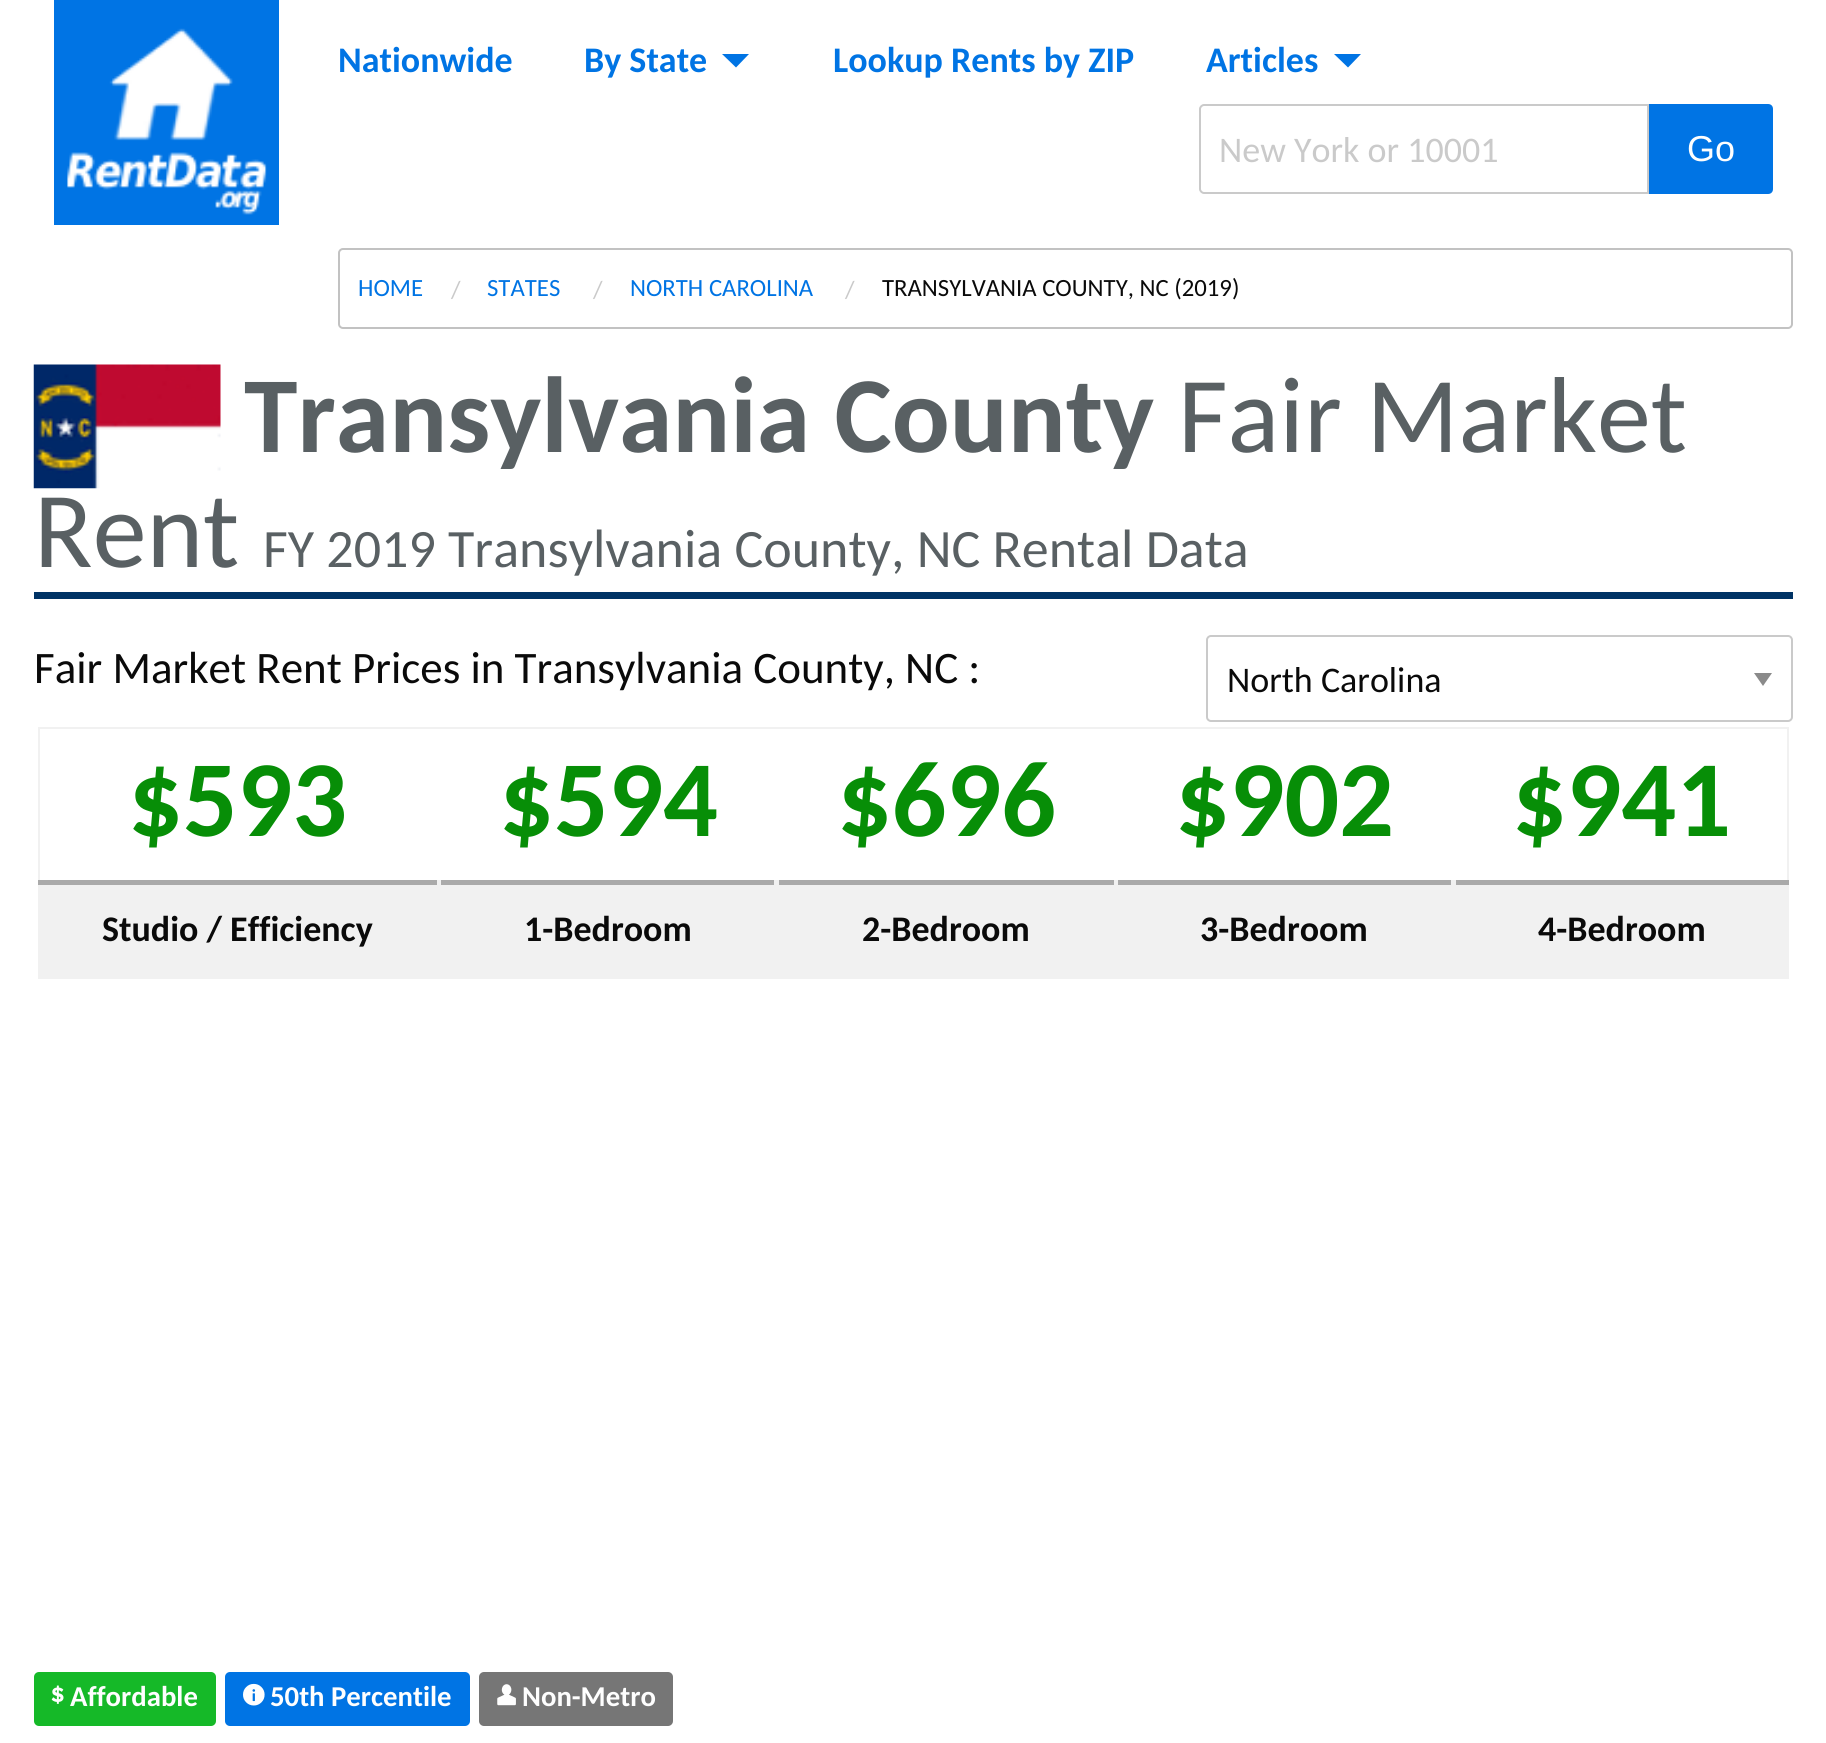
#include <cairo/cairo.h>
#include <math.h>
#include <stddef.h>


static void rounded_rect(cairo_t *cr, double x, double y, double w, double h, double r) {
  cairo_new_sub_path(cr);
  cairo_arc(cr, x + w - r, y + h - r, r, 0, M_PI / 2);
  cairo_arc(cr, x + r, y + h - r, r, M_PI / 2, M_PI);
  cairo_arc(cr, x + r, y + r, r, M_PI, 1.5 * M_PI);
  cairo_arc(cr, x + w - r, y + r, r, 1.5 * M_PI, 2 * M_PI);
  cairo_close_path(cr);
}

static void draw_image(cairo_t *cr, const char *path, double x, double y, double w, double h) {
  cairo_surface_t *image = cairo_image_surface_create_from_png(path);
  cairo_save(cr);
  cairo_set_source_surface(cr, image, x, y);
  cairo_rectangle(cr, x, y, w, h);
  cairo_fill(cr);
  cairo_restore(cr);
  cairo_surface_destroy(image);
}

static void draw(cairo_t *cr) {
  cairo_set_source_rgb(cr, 1, 1, 1);
  cairo_paint(cr);
  draw_image(cr, "images/1.png", 54, 0, 225, 225);
  cairo_set_source_rgb(cr, 0, 116 / 255.0, 228 / 255.0);
  cairo_new_path(cr);
  cairo_move_to(cr, 722, 54);
  cairo_line_to(cr, 749, 54);
  cairo_line_to(cr, 736, 67.5);
  cairo_close_path(cr);
  cairo_fill(cr);
  cairo_new_path(cr);
  cairo_move_to(cr, 1334, 54);
  cairo_line_to(cr, 1361, 54);
  cairo_line_to(cr, 1348, 67.5);
  cairo_close_path(cr);
  cairo_fill(cr);
  cairo_new_path(cr);
  cairo_move_to(cr, 1204, 105);
  cairo_line_to(cr, 1648, 105);
  cairo_line_to(cr, 1648, 193);
  cairo_line_to(cr, 1204, 193);
  cairo_curve_to(cr, 1202, 193, 1200, 191, 1200, 189);
  cairo_line_to(cr, 1200, 109);
  cairo_curve_to(cr, 1200, 107, 1202, 105, 1204, 105);
  cairo_close_path(cr);
  cairo_set_source_rgb(cr, 202 / 255.0, 202 / 255.0, 202 / 255.0);
  cairo_stroke(cr);
  cairo_set_source_rgb(cr, 0, 116 / 255.0, 228 / 255.0);
  cairo_new_path(cr);
  cairo_move_to(cr, 1649, 104);
  cairo_line_to(cr, 1768, 104);
  cairo_curve_to(cr, 1771, 104, 1773, 106, 1773, 109);
  cairo_line_to(cr, 1773, 189);
  cairo_curve_to(cr, 1773, 192, 1771, 194, 1768, 194);
  cairo_line_to(cr, 1649, 194);
  cairo_close_path(cr);
  cairo_fill(cr);
  rounded_rect(cr, 339, 249, 1453, 79, 4);
  cairo_set_source_rgb(cr, 194 / 255.0, 194 / 255.0, 194 / 255.0);
  cairo_stroke(cr);
  cairo_set_source_rgb(cr, 0, 51 / 255.0, 101 / 255.0);
  cairo_rectangle(cr, 34, 592, 1759, 7);
  cairo_fill(cr);
  draw_image(cr, "images/2.png", 33, 364, 188, 125);
  cairo_set_source_rgb(cr, 138 / 255.0, 138 / 255.0, 138 / 255.0);
  cairo_new_path(cr);
  cairo_move_to(cr, 1754, 673);
  cairo_line_to(cr, 1772, 673);
  cairo_line_to(cr, 1763, 686);
  cairo_close_path(cr);
  cairo_fill(cr);
  rounded_rect(cr, 1207, 636, 585, 85, 4);
  cairo_set_source_rgb(cr, 202 / 255.0, 202 / 255.0, 202 / 255.0);
  cairo_stroke(cr);
  cairo_rectangle(cr, 39, 728, 1749, 250);
  cairo_set_source_rgb(cr, 241 / 255.0, 241 / 255.0, 241 / 255.0);
  cairo_stroke(cr);
  cairo_rectangle(cr, 40, 880, 1747, 97);
  cairo_fill(cr);
  cairo_set_source_rgb(cr, 170 / 255.0, 170 / 255.0, 170 / 255.0);
  cairo_rectangle(cr, 38, 880, 399, 5);
  cairo_fill(cr);
  cairo_rectangle(cr, 441, 880, 333, 5);
  cairo_fill(cr);
  cairo_rectangle(cr, 779, 880, 335, 5);
  cairo_fill(cr);
  cairo_rectangle(cr, 1118, 880, 333, 5);
  cairo_fill(cr);
  cairo_rectangle(cr, 1456, 880, 333, 5);
  cairo_fill(cr);
  cairo_set_source_rgb(cr, 21 / 255.0, 185 / 255.0, 40 / 255.0);
  rounded_rect(cr, 34, 1672, 182, 54, 5);
  cairo_fill(cr);
  draw_image(cr, "images/3.png", 51, 1685, 13, 19);
  cairo_set_source_rgb(cr, 0, 116 / 255.0, 228 / 255.0);
  rounded_rect(cr, 225, 1672, 245, 54, 5);
  cairo_fill(cr);
  draw_image(cr, "images/4.png", 243, 1683, 22, 23);
  cairo_set_source_rgb(cr, 118 / 255.0, 118 / 255.0, 118 / 255.0);
  rounded_rect(cr, 479, 1672, 194, 54, 5);
  cairo_fill(cr);
  draw_image(cr, "images/5.png", 497, 1684, 19, 22);
  cairo_select_font_face(cr, "Carlito", CAIRO_FONT_SLANT_NORMAL, CAIRO_FONT_WEIGHT_BOLD);
  cairo_set_font_size(cr, 36);
  cairo_set_source_rgb(cr, 0, 116 / 255.0, 228 / 255.0);
  cairo_move_to(cr, 338, 72);
  cairo_show_text(cr, "Nationwide");
  cairo_move_to(cr, 584, 72);
  cairo_show_text(cr, "By State");
  cairo_move_to(cr, 833, 72);
  cairo_show_text(cr, "Lookup Rents by ZIP");
  cairo_move_to(cr, 1206, 72);
  cairo_show_text(cr, "Articles");
  cairo_select_font_face(cr, "Carlito", CAIRO_FONT_SLANT_NORMAL, CAIRO_FONT_WEIGHT_NORMAL);
  cairo_set_source_rgb(cr, 202 / 255.0, 202 / 255.0, 202 / 255.0);
  cairo_move_to(cr, 1219, 162);
  cairo_show_text(cr, "New York or 10001");
  cairo_select_font_face(cr, "Liberation Sans", CAIRO_FONT_SLANT_NORMAL, CAIRO_FONT_WEIGHT_NORMAL);
  cairo_set_source_rgb(cr, 254 / 255.0, 254 / 255.0, 254 / 255.0);
  cairo_move_to(cr, 1687, 161);
  cairo_show_text(cr, "Go");
  cairo_select_font_face(cr, "Carlito", CAIRO_FONT_SLANT_NORMAL, CAIRO_FONT_WEIGHT_NORMAL);
  cairo_set_font_size(cr, 24.75);
  cairo_set_source_rgb(cr, 0, 116 / 255.0, 228 / 255.0);
  cairo_move_to(cr, 358, 296);
  cairo_show_text(cr, "HOME");
  cairo_set_source_rgb(cr, 202 / 255.0, 202 / 255.0, 202 / 255.0);
  cairo_move_to(cr, 451, 298);
  cairo_show_text(cr, "/");
  cairo_set_source_rgb(cr, 0, 116 / 255.0, 228 / 255.0);
  cairo_move_to(cr, 487, 296);
  cairo_show_text(cr, "STATES");
  cairo_set_source_rgb(cr, 202 / 255.0, 202 / 255.0, 202 / 255.0);
  cairo_move_to(cr, 593, 298);
  cairo_show_text(cr, "/");
  cairo_set_source_rgb(cr, 0, 116 / 255.0, 228 / 255.0);
  cairo_move_to(cr, 630, 296);
  cairo_show_text(cr, "NORTH CAROLINA");
  cairo_set_source_rgb(cr, 202 / 255.0, 202 / 255.0, 202 / 255.0);
  cairo_move_to(cr, 845, 298);
  cairo_show_text(cr, "/");
  cairo_set_source_rgb(cr, 10 / 255.0, 10 / 255.0, 10 / 255.0);
  cairo_move_to(cr, 882, 296);
  cairo_show_text(cr, "TRANSYLVANIA COUNTY, NC (2019)");
  cairo_select_font_face(cr, "Carlito", CAIRO_FONT_SLANT_NORMAL, CAIRO_FONT_WEIGHT_BOLD);
  cairo_set_font_size(cr, 108);
  cairo_set_source_rgb(cr, 89 / 255.0, 96 / 255.0, 99 / 255.0);
  cairo_move_to(cr, 244, 452);
  cairo_show_text(cr, "Transylvania County");
  cairo_select_font_face(cr, "Carlito", CAIRO_FONT_SLANT_NORMAL, CAIRO_FONT_WEIGHT_NORMAL);
  cairo_move_to(cr, 1178, 452);
  cairo_show_text(cr, "Fair Market");
  cairo_move_to(cr, 34, 567);
  cairo_show_text(cr, "Rent");
  cairo_set_font_size(cr, 54);
  cairo_move_to(cr, 263, 567);
  cairo_show_text(cr, "FY 2019 Transylvania County, NC Rental Data");
  cairo_set_font_size(cr, 45);
  cairo_set_source_rgb(cr, 10 / 255.0, 10 / 255.0, 10 / 255.0);
  cairo_move_to(cr, 34, 683);
  cairo_show_text(cr, "Fair Market Rent Prices in Transylvania County, NC :");
  cairo_set_font_size(cr, 36);
  cairo_move_to(cr, 1227, 692);
  cairo_show_text(cr, "North Carolina");
  cairo_select_font_face(cr, "Carlito", CAIRO_FONT_SLANT_NORMAL, CAIRO_FONT_WEIGHT_BOLD);
  cairo_set_font_size(cr, 108);
  cairo_set_source_rgb(cr, 7 / 255.0, 142 / 255.0, 7 / 255.0);
  cairo_move_to(cr, 128, 836);
  cairo_show_text(cr, "$593");
  cairo_move_to(cr, 499, 836);
  cairo_show_text(cr, "$594");
  cairo_move_to(cr, 837, 836);
  cairo_show_text(cr, "$696");
  cairo_move_to(cr, 1175, 836);
  cairo_show_text(cr, "$902");
  cairo_move_to(cr, 1512, 836);
  cairo_show_text(cr, "$941");
  cairo_set_font_size(cr, 36);
  cairo_set_source_rgb(cr, 10 / 255.0, 10 / 255.0, 10 / 255.0);
  cairo_move_to(cr, 102, 941);
  cairo_show_text(cr, "Studio / Efficiency");
  cairo_move_to(cr, 524, 941);
  cairo_show_text(cr, "1-Bedroom");
  cairo_move_to(cr, 862, 941);
  cairo_show_text(cr, "2-Bedroom");
  cairo_move_to(cr, 1200, 941);
  cairo_show_text(cr, "3-Bedroom");
  cairo_move_to(cr, 1538, 941);
  cairo_show_text(cr, "4-Bedroom");
  cairo_set_font_size(cr, 28.75);
  cairo_set_source_rgb(cr, 254 / 255.0, 254 / 255.0, 254 / 255.0);
  cairo_move_to(cr, 70, 1706);
  cairo_show_text(cr, "Affordable");
  cairo_move_to(cr, 270, 1706);
  cairo_show_text(cr, "50th Percentile");
  cairo_move_to(cr, 522, 1706);
  cairo_show_text(cr, "Non-Metro");
}

int main(void) {
  cairo_surface_t *surface = cairo_image_surface_create(CAIRO_FORMAT_RGB24, 1826, 1743);
  cairo_t *cr = cairo_create(surface);
  cairo_font_options_t *options = cairo_font_options_create();
  cairo_font_options_set_hint_metrics(options, CAIRO_HINT_METRICS_OFF);
  cairo_font_options_set_hint_style(options, CAIRO_HINT_STYLE_NONE);
  cairo_set_font_options(cr, options);
  cairo_set_miter_limit(cr, 4);
  draw(cr);
  cairo_surface_write_to_png(surface, "out.png");
  cairo_font_options_destroy(options);
  cairo_destroy(cr);
  cairo_surface_destroy(surface);
  return 0;
}
